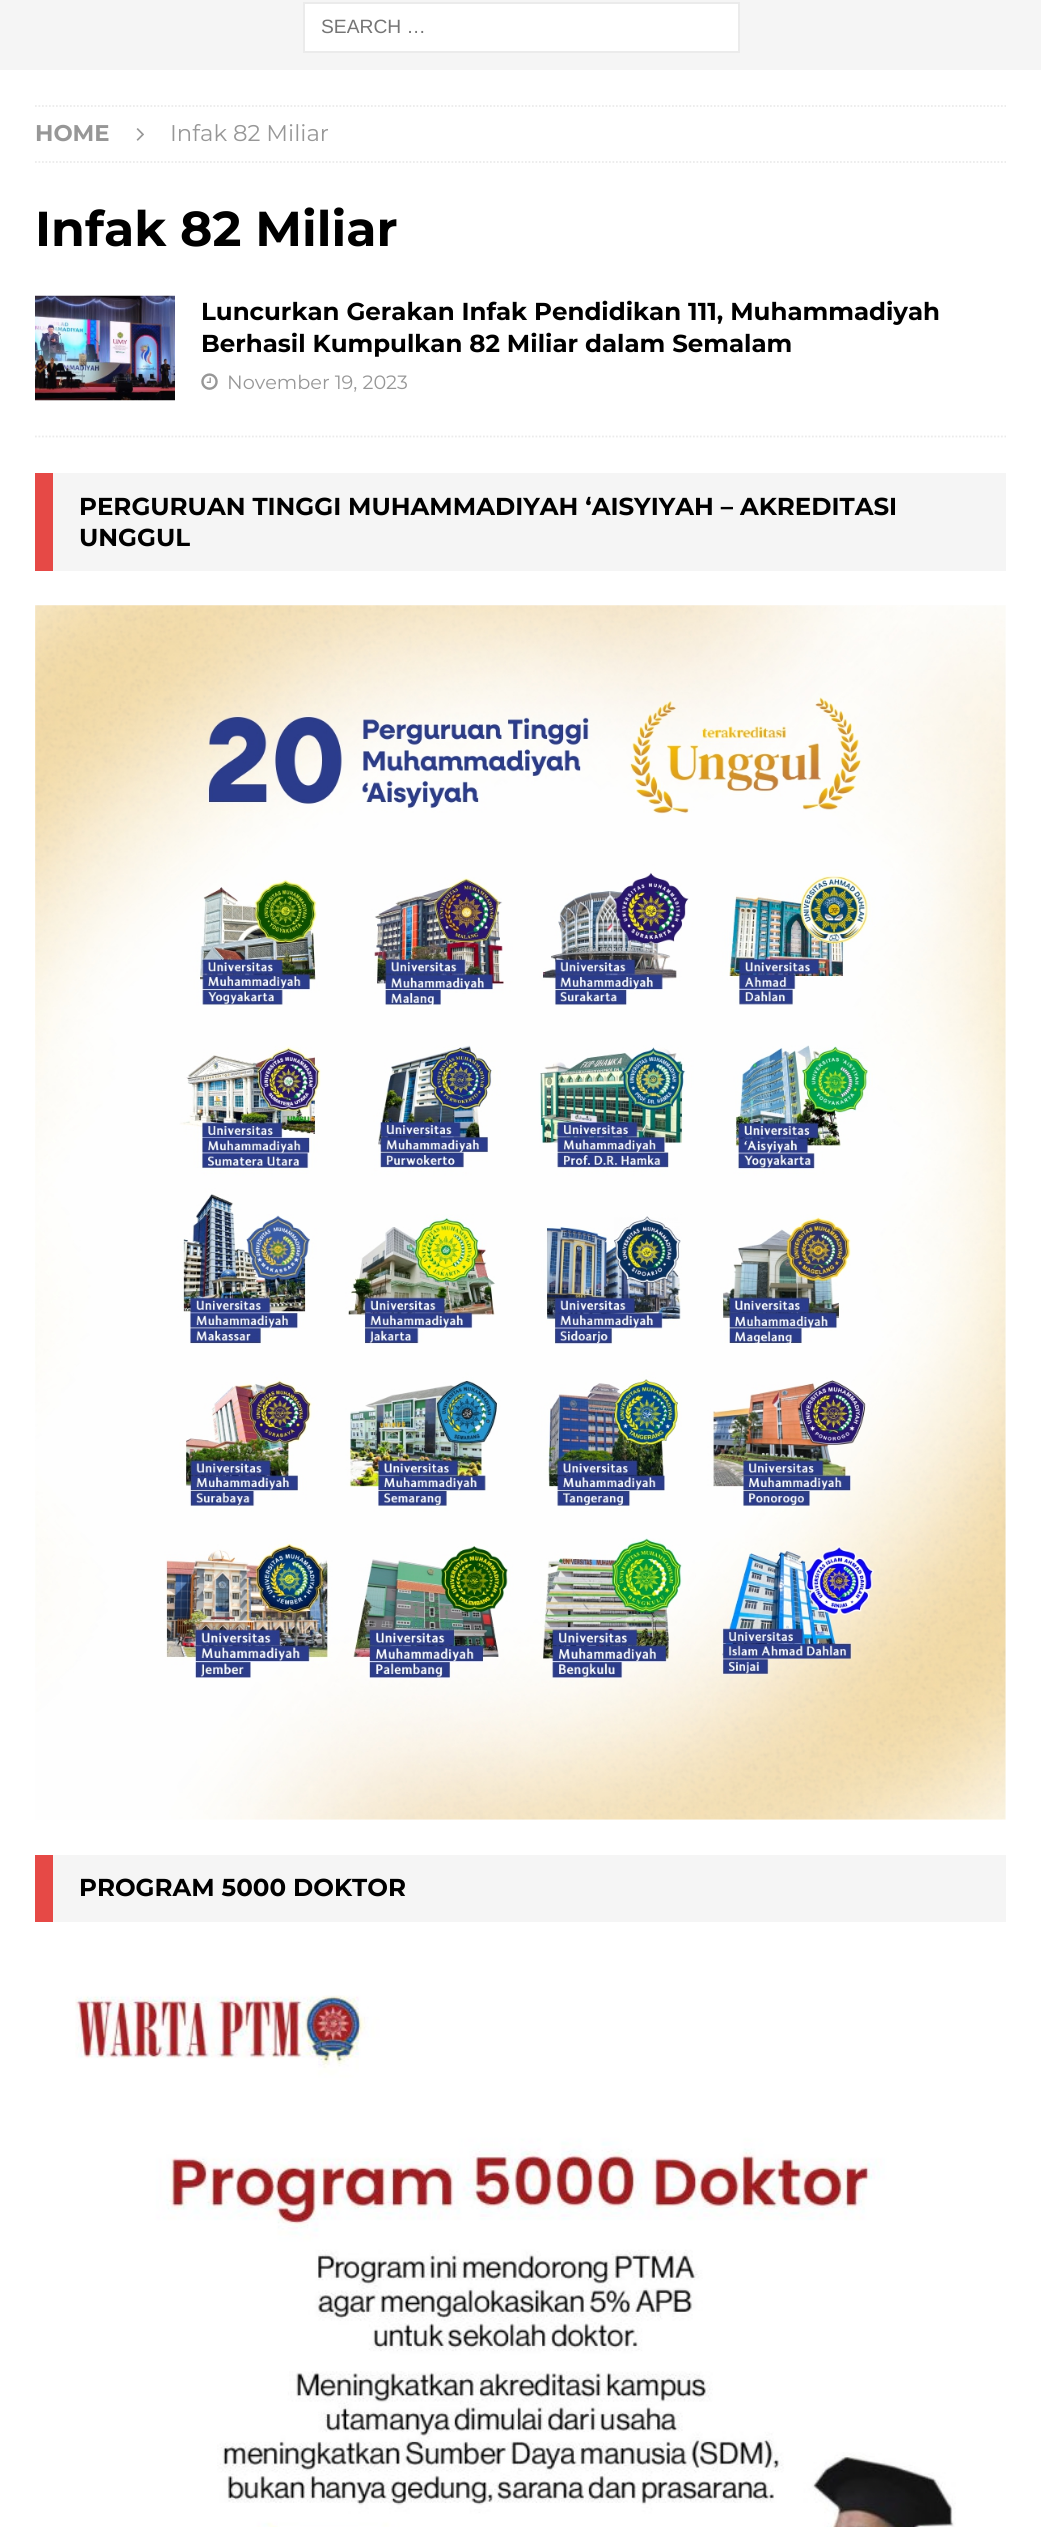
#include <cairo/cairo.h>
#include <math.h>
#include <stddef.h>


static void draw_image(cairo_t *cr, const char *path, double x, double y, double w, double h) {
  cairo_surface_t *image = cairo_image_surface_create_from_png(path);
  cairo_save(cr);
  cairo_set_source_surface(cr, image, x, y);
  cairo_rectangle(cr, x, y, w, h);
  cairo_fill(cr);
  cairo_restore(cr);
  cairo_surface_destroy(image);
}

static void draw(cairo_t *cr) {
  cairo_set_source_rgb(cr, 1, 1, 1);
  cairo_paint(cr);
  cairo_set_source_rgb(cr, 245 / 255.0, 245 / 255.0, 245 / 255.0);
  cairo_rectangle(cr, 0, 0, 1041, 70);
  cairo_fill(cr);
  cairo_set_source_rgb(cr, 1, 1, 1);
  cairo_rectangle(cr, 304, 3, 435, 49);
  cairo_fill_preserve(cr);
  cairo_set_source_rgb(cr, 235 / 255.0, 235 / 255.0, 235 / 255.0);
  cairo_stroke(cr);
  cairo_new_path(cr);
  cairo_move_to(cr, 35, 106);
  cairo_line_to(cr, 1006, 106);
  cairo_set_line_width(cr, 1.8);
  cairo_set_dash(cr, (double[]){1.75, 1.75}, 2, 0);
  cairo_stroke(cr);
  cairo_new_path(cr);
  cairo_move_to(cr, 35, 162);
  cairo_line_to(cr, 1006, 162);
  cairo_stroke(cr);
  draw_image(cr, "images/1.png", 136, 128, 8, 13);
  cairo_new_path(cr);
  cairo_move_to(cr, 35, 436.5);
  cairo_line_to(cr, 1006, 436.5);
  cairo_stroke(cr);
  draw_image(cr, "images/2.png", 35, 295, 140, 106);
  draw_image(cr, "images/3.png", 201, 373, 17, 17);
  cairo_set_source_rgb(cr, 245 / 255.0, 245 / 255.0, 245 / 255.0);
  cairo_rectangle(cr, 53, 473, 953, 98);
  cairo_fill(cr);
  cairo_set_source_rgb(cr, 230 / 255.0, 73 / 255.0, 70 / 255.0);
  cairo_rectangle(cr, 35, 473, 18, 98);
  cairo_fill(cr);
  draw_image(cr, "images/4.png", 35, 605, 971, 1215);
  cairo_set_source_rgb(cr, 245 / 255.0, 245 / 255.0, 245 / 255.0);
  cairo_rectangle(cr, 53, 1855, 953, 67);
  cairo_fill(cr);
  cairo_set_source_rgb(cr, 230 / 255.0, 73 / 255.0, 70 / 255.0);
  cairo_rectangle(cr, 35, 1855, 18, 67);
  cairo_fill(cr);
  draw_image(cr, "images/5.png", 75, 1995, 881, 532);
  cairo_select_font_face(cr, "Liberation Sans", CAIRO_FONT_SLANT_NORMAL, CAIRO_FONT_WEIGHT_NORMAL);
  cairo_set_font_size(cr, 19.25);
  cairo_set_source_rgb(cr, 117 / 255.0, 117 / 255.0, 117 / 255.0);
  cairo_move_to(cr, 321, 33);
  cairo_show_text(cr, "SEARCH …");
  cairo_select_font_face(cr, "Montserrat", CAIRO_FONT_SLANT_NORMAL, CAIRO_FONT_WEIGHT_BOLD);
  cairo_set_font_size(cr, 22.75);
  cairo_set_source_rgb(cr, 151 / 255.0, 151 / 255.0, 151 / 255.0);
  cairo_move_to(cr, 35, 141);
  cairo_show_text(cr, "HOME");
  cairo_select_font_face(cr, "Montserrat", CAIRO_FONT_SLANT_NORMAL, CAIRO_FONT_WEIGHT_NORMAL);
  cairo_move_to(cr, 170, 141);
  cairo_show_text(cr, "Infak 82 Miliar");
  cairo_select_font_face(cr, "Montserrat", CAIRO_FONT_SLANT_NORMAL, CAIRO_FONT_WEIGHT_BOLD);
  cairo_set_font_size(cr, 49);
  cairo_set_source_rgb(cr, 0, 0, 0);
  cairo_move_to(cr, 35, 246);
  cairo_show_text(cr, "Infak 82 Miliar");
  cairo_set_font_size(cr, 24.5);
  cairo_move_to(cr, 201, 320);
  cairo_show_text(cr, "Luncurkan Gerakan Infak Pendidikan 111, Muhammadiyah");
  cairo_move_to(cr, 201, 352);
  cairo_show_text(cr, "Berhasil Kumpulkan 82 Miliar dalam Semalam");
  cairo_select_font_face(cr, "Montserrat", CAIRO_FONT_SLANT_NORMAL, CAIRO_FONT_WEIGHT_NORMAL);
  cairo_set_font_size(cr, 19.25);
  cairo_set_source_rgb(cr, 151 / 255.0, 151 / 255.0, 151 / 255.0);
  cairo_move_to(cr, 227, 389);
  cairo_show_text(cr, "November 19, 2023");
  cairo_select_font_face(cr, "Montserrat", CAIRO_FONT_SLANT_NORMAL, CAIRO_FONT_WEIGHT_BOLD);
  cairo_set_font_size(cr, 24.5);
  cairo_set_source_rgb(cr, 0, 0, 0);
  cairo_move_to(cr, 79, 515);
  cairo_show_text(cr, "PERGURUAN TINGGI MUHAMMADIYAH ‘AISYIYAH – AKREDITASI");
  cairo_move_to(cr, 79, 546);
  cairo_show_text(cr, "UNGGUL");
  cairo_move_to(cr, 79, 1896);
  cairo_show_text(cr, "PROGRAM 5000 DOKTOR");
}

int main(void) {
  cairo_surface_t *surface = cairo_image_surface_create(CAIRO_FORMAT_RGB24, 1041, 2527);
  cairo_t *cr = cairo_create(surface);
  cairo_font_options_t *options = cairo_font_options_create();
  cairo_font_options_set_hint_metrics(options, CAIRO_HINT_METRICS_OFF);
  cairo_font_options_set_hint_style(options, CAIRO_HINT_STYLE_NONE);
  cairo_set_font_options(cr, options);
  cairo_set_miter_limit(cr, 4);
  draw(cr);
  cairo_surface_write_to_png(surface, "out.png");
  cairo_font_options_destroy(options);
  cairo_destroy(cr);
  cairo_surface_destroy(surface);
  return 0;
}
